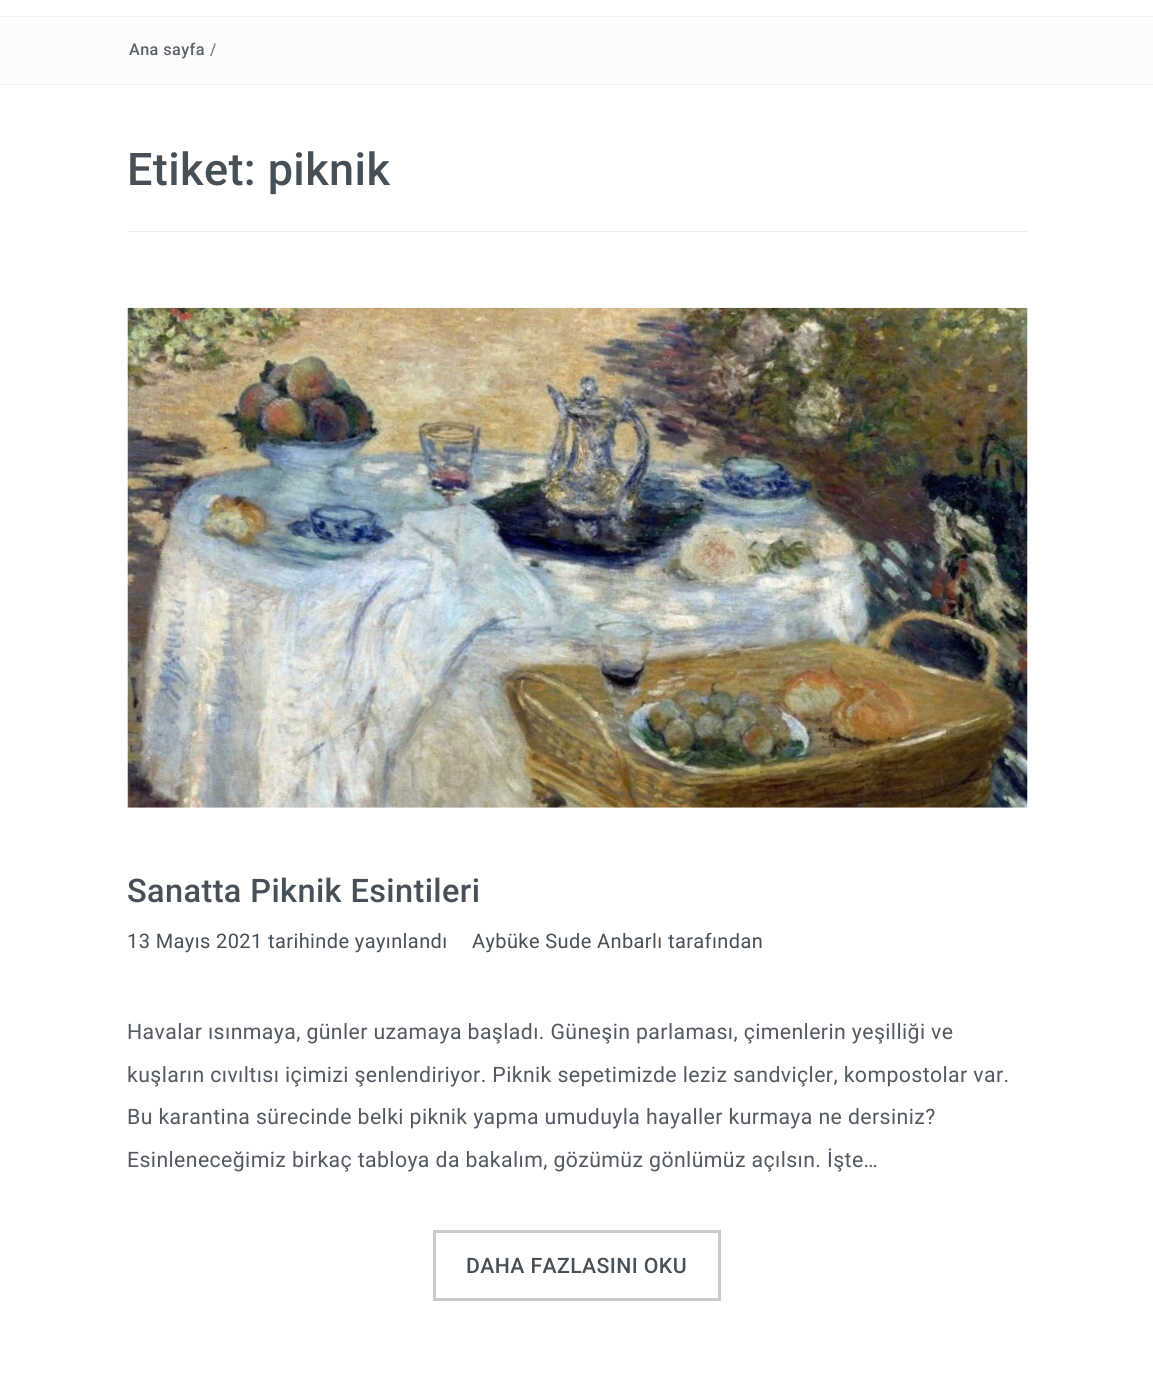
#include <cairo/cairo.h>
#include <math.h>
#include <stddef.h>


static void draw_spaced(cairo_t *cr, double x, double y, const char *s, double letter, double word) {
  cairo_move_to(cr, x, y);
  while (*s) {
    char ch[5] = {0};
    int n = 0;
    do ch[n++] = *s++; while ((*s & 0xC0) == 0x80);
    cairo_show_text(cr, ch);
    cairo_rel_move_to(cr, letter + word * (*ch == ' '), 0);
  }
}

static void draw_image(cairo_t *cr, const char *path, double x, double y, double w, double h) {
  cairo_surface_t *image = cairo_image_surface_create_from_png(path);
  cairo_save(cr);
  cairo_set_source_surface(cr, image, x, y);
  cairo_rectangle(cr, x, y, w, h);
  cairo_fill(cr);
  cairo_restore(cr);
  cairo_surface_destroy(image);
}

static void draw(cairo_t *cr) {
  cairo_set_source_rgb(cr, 1, 1, 1);
  cairo_paint(cr);
  cairo_set_source_rgb(cr, 244 / 255.0, 245 / 255.0, 245 / 255.0);
  cairo_rectangle(cr, 0, 16, 1153, 1);
  cairo_fill(cr);
  cairo_set_source_rgb(cr, 252 / 255.0, 252 / 255.0, 252 / 255.0);
  cairo_rectangle(cr, 0, 18, 1153, 66);
  cairo_fill(cr);
  cairo_set_source_rgb(cr, 241 / 255.0, 242 / 255.0, 242 / 255.0);
  cairo_rectangle(cr, 0, 84, 1153, 1);
  cairo_fill(cr);
  cairo_set_source_rgb(cr, 238 / 255.0, 238 / 255.0, 238 / 255.0);
  cairo_rectangle(cr, 128, 231, 900, 1);
  cairo_fill(cr);
  draw_image(cr, "images/1.png", 127, 307, 901, 501);
  cairo_rectangle(cr, 434.5, 1231.5, 285, 68);
  cairo_set_source_rgb(cr, 201 / 255.0, 203 / 255.0, 206 / 255.0);
  cairo_set_line_width(cr, 3);
  cairo_stroke(cr);
  cairo_select_font_face(cr, "Roboto Medium", CAIRO_FONT_SLANT_NORMAL, CAIRO_FONT_WEIGHT_NORMAL);
  cairo_set_font_size(cr, 16.25);
  cairo_set_source_rgb(cr, 92 / 255.0, 99 / 255.0, 106 / 255.0);
  draw_spaced(cr, 129, 55, "Ana sayfa", 0.4, 0);
  cairo_set_source_rgb(cr, 124 / 255.0, 130 / 255.0, 135 / 255.0);
  draw_spaced(cr, 210, 55, "/", 0.4, 0);
  cairo_set_font_size(cr, 45);
  cairo_set_source_rgb(cr, 71 / 255.0, 79 / 255.0, 87 / 255.0);
  draw_spaced(cr, 127, 185, "Etiket: piknik", 0.4, 0);
  cairo_set_font_size(cr, 32.5);
  draw_spaced(cr, 127, 902, "Sanatta Piknik Esintileri", 0.4, 0);
  cairo_select_font_face(cr, "Roboto", CAIRO_FONT_SLANT_NORMAL, CAIRO_FONT_WEIGHT_NORMAL);
  cairo_set_font_size(cr, 20);
  draw_spaced(cr, 127, 948, "13 Mayıs 2021 tarihinde yayınlandı", 0.4, 0);
  draw_spaced(cr, 472, 948, "Aybüke Sude Anbarlı tarafından", 0.4, 0);
  cairo_set_font_size(cr, 21.25);
  cairo_set_source_rgb(cr, 82 / 255.0, 89 / 255.0, 97 / 255.0);
  draw_spaced(cr, 127, 1039, "Havalar ısınmaya, günler uzamaya başladı. Güneşin parlaması, çimenlerin yeşilliği ve", 0.4, 0);
  draw_spaced(cr, 127, 1082, "kuşların cıvıltısı içimizi şenlendiriyor. Piknik sepetimizde leziz sandviçler, kompostolar var.", 0.4, 0);
  draw_spaced(cr, 127, 1124, "Bu karantina sürecinde belki piknik yapma umuduyla hayaller kurmaya ne dersiniz?", 0.4, 0);
  draw_spaced(cr, 127, 1167, "Esinleneceğimiz birkaç tabloya da bakalım, gözümüz gönlümüz açılsın. İşte…", 0.4, 0);
  cairo_select_font_face(cr, "Roboto Medium", CAIRO_FONT_SLANT_NORMAL, CAIRO_FONT_WEIGHT_NORMAL);
  cairo_set_source_rgb(cr, 71 / 255.0, 79 / 255.0, 87 / 255.0);
  draw_spaced(cr, 466, 1273, "DAHA FAZLASINI OKU", 0.4, 0);
}

int main(void) {
  cairo_surface_t *surface = cairo_image_surface_create(CAIRO_FORMAT_RGB24, 1153, 1392);
  cairo_t *cr = cairo_create(surface);
  cairo_font_options_t *options = cairo_font_options_create();
  cairo_font_options_set_hint_metrics(options, CAIRO_HINT_METRICS_OFF);
  cairo_font_options_set_hint_style(options, CAIRO_HINT_STYLE_NONE);
  cairo_set_font_options(cr, options);
  cairo_set_miter_limit(cr, 4);
  draw(cr);
  cairo_surface_write_to_png(surface, "out.png");
  cairo_font_options_destroy(options);
  cairo_destroy(cr);
  cairo_surface_destroy(surface);
  return 0;
}
